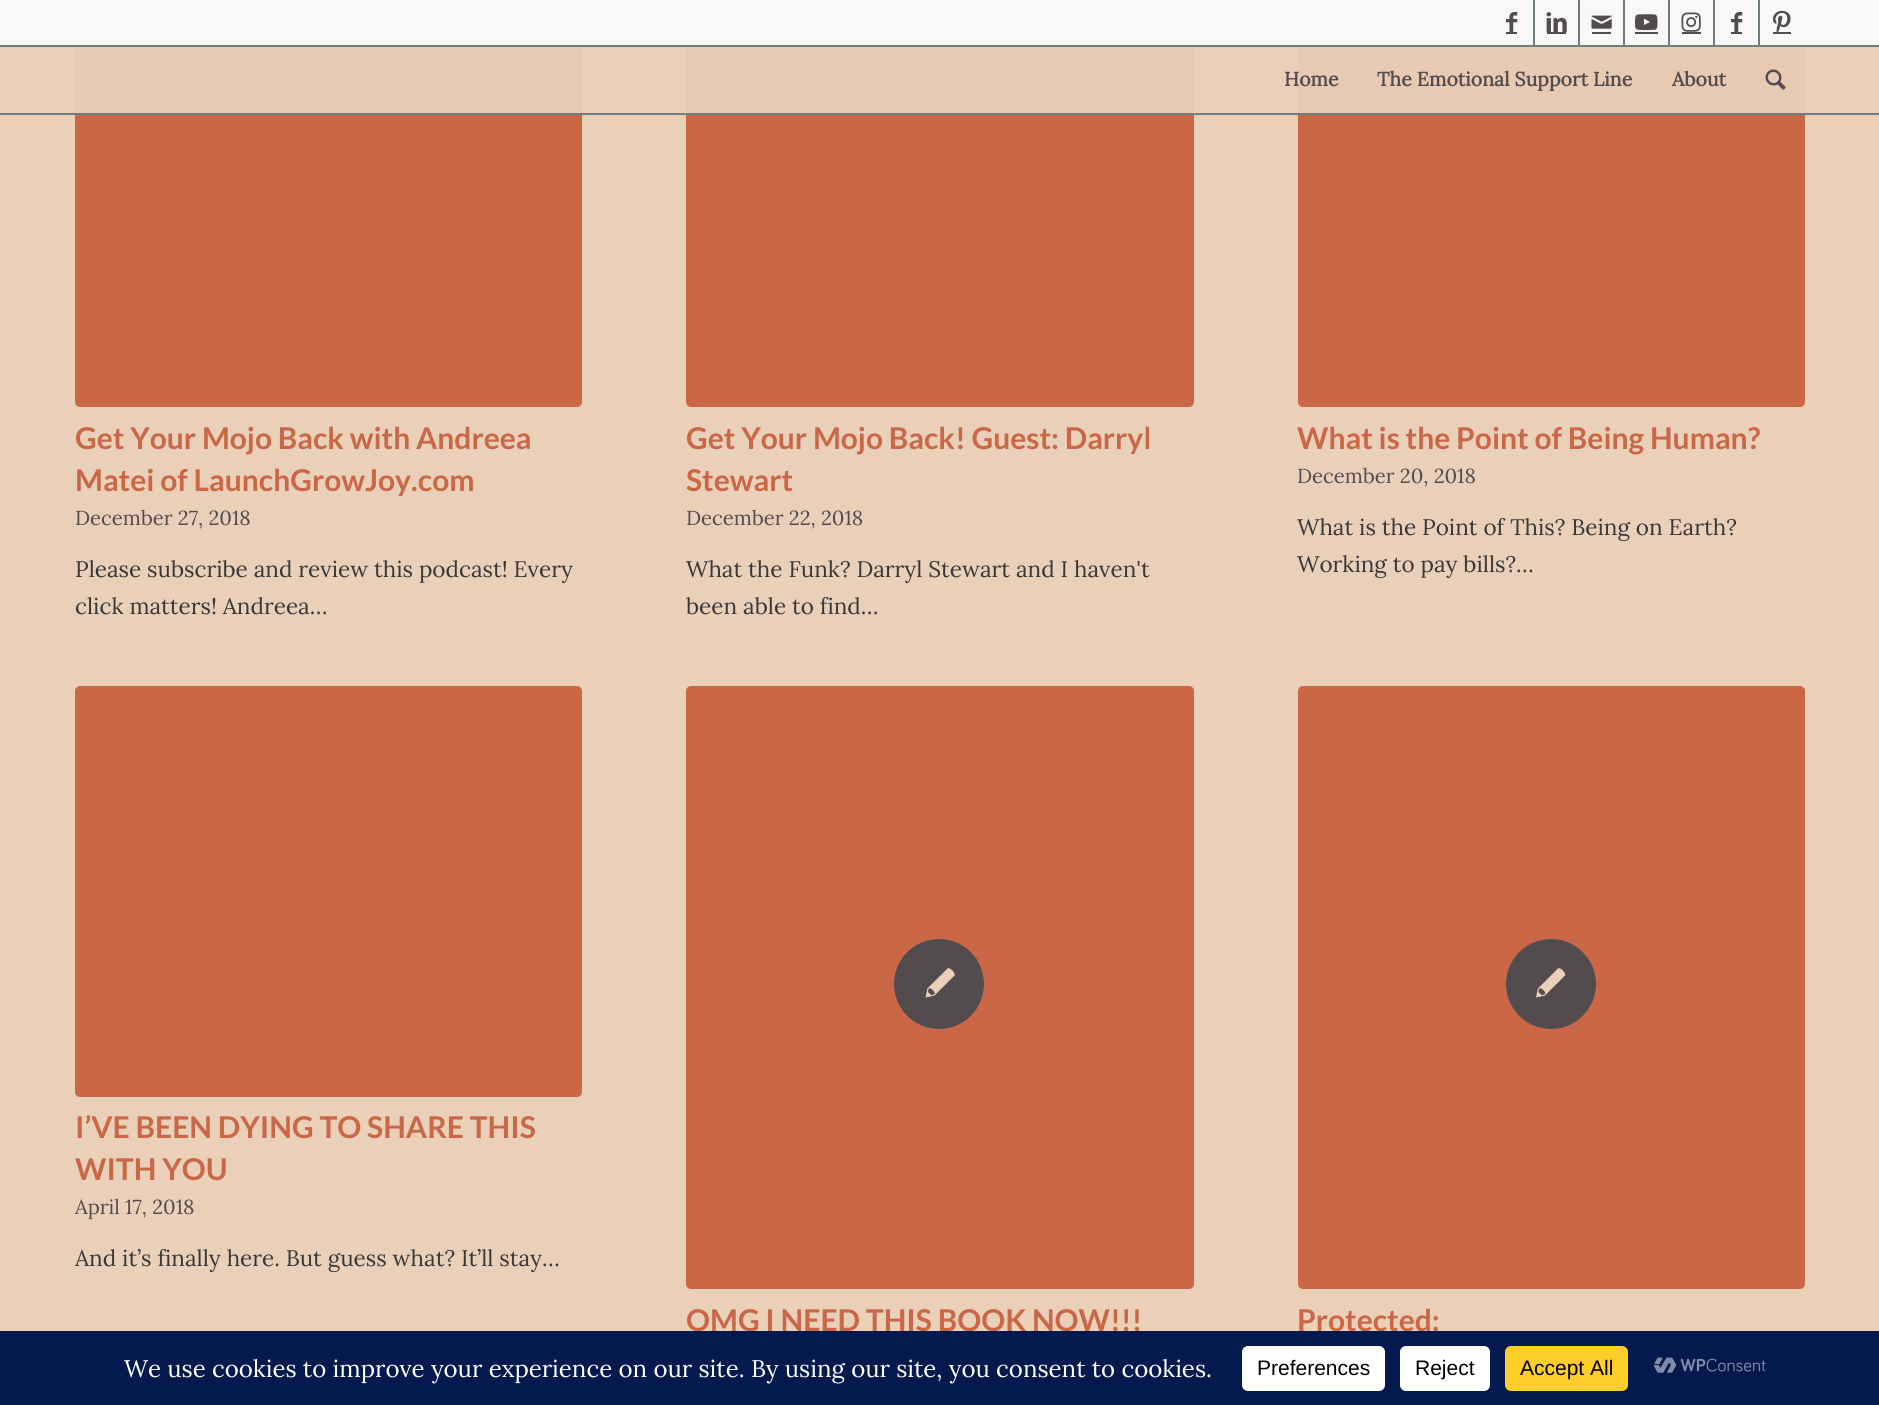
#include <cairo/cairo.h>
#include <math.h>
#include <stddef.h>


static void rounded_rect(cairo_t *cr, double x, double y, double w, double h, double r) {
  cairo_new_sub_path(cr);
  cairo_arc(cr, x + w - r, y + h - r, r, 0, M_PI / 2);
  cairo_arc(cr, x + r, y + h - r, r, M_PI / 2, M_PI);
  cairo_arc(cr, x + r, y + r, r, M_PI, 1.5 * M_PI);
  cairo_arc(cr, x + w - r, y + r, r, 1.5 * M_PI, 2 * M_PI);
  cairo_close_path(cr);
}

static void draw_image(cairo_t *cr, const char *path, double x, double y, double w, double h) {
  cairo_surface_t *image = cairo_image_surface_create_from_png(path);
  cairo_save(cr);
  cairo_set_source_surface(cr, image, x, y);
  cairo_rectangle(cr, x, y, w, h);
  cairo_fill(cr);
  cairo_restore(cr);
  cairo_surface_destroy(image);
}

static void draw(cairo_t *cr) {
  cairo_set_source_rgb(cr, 234 / 255.0, 207 / 255.0, 185 / 255.0);
  cairo_paint(cr);
  cairo_set_source_rgb(cr, 201 / 255.0, 103 / 255.0, 71 / 255.0);
  rounded_rect(cr, 75, -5, 507, 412, 5);
  cairo_fill(cr);
  rounded_rect(cr, 686, -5, 508, 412, 5);
  cairo_fill(cr);
  rounded_rect(cr, 1298, -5, 507, 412, 5);
  cairo_fill(cr);
  cairo_set_source_rgb(cr, 248 / 255.0, 248 / 255.0, 248 / 255.0);
  cairo_rectangle(cr, 0, 0, 1879, 45);
  cairo_fill(cr);
  cairo_set_source_rgb(cr, 109 / 255.0, 126 / 255.0, 125 / 255.0);
  cairo_rectangle(cr, 0, 45, 1879, 2);
  cairo_fill(cr);
  cairo_rectangle(cr, 1533, 0, 2, 45);
  cairo_fill(cr);
  draw_image(cr, "images/1.png", 1506, 12, 12, 20);
  cairo_set_source_rgb(cr, 82 / 255.0, 76 / 255.0, 79 / 255.0);
  cairo_rectangle(cr, 1506, 32, 11, 2);
  cairo_fill(cr);
  cairo_set_source_rgb(cr, 109 / 255.0, 126 / 255.0, 125 / 255.0);
  cairo_rectangle(cr, 1578, 0, 2, 45);
  cairo_fill(cr);
  cairo_set_source_rgb(cr, 82 / 255.0, 76 / 255.0, 79 / 255.0);
  cairo_rectangle(cr, 1547, 32, 19, 2);
  cairo_fill(cr);
  draw_image(cr, "images/2.png", 1546, 12, 21, 21);
  cairo_set_source_rgb(cr, 109 / 255.0, 126 / 255.0, 125 / 255.0);
  cairo_rectangle(cr, 1623, 0, 2, 45);
  cairo_fill(cr);
  draw_image(cr, "images/3.png", 1591, 15, 21, 14);
  cairo_set_source_rgb(cr, 82 / 255.0, 76 / 255.0, 79 / 255.0);
  cairo_rectangle(cr, 1592, 32, 19, 2);
  cairo_fill(cr);
  cairo_set_source_rgb(cr, 109 / 255.0, 126 / 255.0, 125 / 255.0);
  cairo_rectangle(cr, 1668, 0, 2, 45);
  cairo_fill(cr);
  draw_image(cr, "images/4.png", 1635, 14, 23, 17);
  cairo_set_source_rgb(cr, 82 / 255.0, 76 / 255.0, 79 / 255.0);
  cairo_rectangle(cr, 1635, 32, 23, 2);
  cairo_fill(cr);
  cairo_set_source_rgb(cr, 109 / 255.0, 126 / 255.0, 125 / 255.0);
  cairo_rectangle(cr, 1713, 0, 2, 45);
  cairo_fill(cr);
  draw_image(cr, "images/5.png", 1681, 12, 20, 20);
  cairo_set_source_rgb(cr, 82 / 255.0, 76 / 255.0, 79 / 255.0);
  cairo_rectangle(cr, 1682, 32, 19, 2);
  cairo_fill(cr);
  cairo_set_source_rgb(cr, 109 / 255.0, 126 / 255.0, 125 / 255.0);
  cairo_rectangle(cr, 1758, 0, 2, 45);
  cairo_fill(cr);
  draw_image(cr, "images/1.png", 1731, 12, 12, 20);
  cairo_set_source_rgb(cr, 82 / 255.0, 76 / 255.0, 79 / 255.0);
  cairo_rectangle(cr, 1731, 32, 11, 2);
  cairo_fill(cr);
  draw_image(cr, "images/6.png", 1773, 10, 18, 22);
  cairo_rectangle(cr, 1773, 32, 18, 2);
  cairo_fill(cr);
  cairo_set_source_rgb(cr, 109 / 255.0, 126 / 255.0, 125 / 255.0);
  cairo_rectangle(cr, 0, 113, 1879, 2);
  cairo_fill(cr);
  cairo_set_source_rgb(cr, 232 / 255.0, 202 / 255.0, 179 / 255.0);
  cairo_rectangle(cr, 1298, 47, 507, 66);
  cairo_fill(cr);
  draw_image(cr, "images/7.png", 1765, 69, 21, 21);
  cairo_rectangle(cr, 75, 47, 507, 66);
  cairo_fill(cr);
  cairo_rectangle(cr, 686, 47, 508, 66);
  cairo_fill(cr);
  cairo_set_source_rgb(cr, 201 / 255.0, 103 / 255.0, 71 / 255.0);
  rounded_rect(cr, 75, 686, 507, 411, 5);
  cairo_fill(cr);
  rounded_rect(cr, 687, 687, 506, 601, 4);
  cairo_fill_preserve(cr);
  cairo_stroke(cr);
  cairo_set_source_rgb(cr, 82 / 255.0, 76 / 255.0, 79 / 255.0);
  cairo_arc(cr, 939, 984, 45, 0, 2 * M_PI);
  cairo_fill(cr);
  draw_image(cr, "images/8.png", 925, 968, 30, 30);
  cairo_set_source_rgb(cr, 201 / 255.0, 103 / 255.0, 71 / 255.0);
  rounded_rect(cr, 1299, 687, 505, 601, 4);
  cairo_fill_preserve(cr);
  cairo_stroke(cr);
  cairo_set_source_rgb(cr, 82 / 255.0, 76 / 255.0, 79 / 255.0);
  cairo_arc(cr, 1551, 984, 45, 0, 2 * M_PI);
  cairo_fill(cr);
  draw_image(cr, "images/9.png", 1536, 968, 30, 30);
  cairo_select_font_face(cr, "Lora", CAIRO_FONT_SLANT_NORMAL, CAIRO_FONT_WEIGHT_BOLD);
  cairo_set_font_size(cr, 19.5);
  cairo_move_to(cr, 1284, 86);
  cairo_show_text(cr, "Home");
  cairo_move_to(cr, 1377, 86);
  cairo_show_text(cr, "The Emotional Support Line");
  cairo_move_to(cr, 1672, 86);
  cairo_show_text(cr, "About");
  cairo_select_font_face(cr, "Lato", CAIRO_FONT_SLANT_NORMAL, CAIRO_FONT_WEIGHT_BOLD);
  cairo_set_font_size(cr, 30);
  cairo_set_source_rgb(cr, 201 / 255.0, 103 / 255.0, 71 / 255.0);
  cairo_move_to(cr, 75, 449);
  cairo_show_text(cr, "Get Your Mojo Back with Andreea");
  cairo_move_to(cr, 75, 491);
  cairo_show_text(cr, "Matei of LaunchGrowJoy.com");
  cairo_select_font_face(cr, "Lora", CAIRO_FONT_SLANT_NORMAL, CAIRO_FONT_WEIGHT_NORMAL);
  cairo_set_font_size(cr, 20.25);
  cairo_set_source_rgb(cr, 82 / 255.0, 76 / 255.0, 79 / 255.0);
  cairo_move_to(cr, 75, 525);
  cairo_show_text(cr, "December 27, 2018");
  cairo_set_font_size(cr, 22.5);
  cairo_set_source_rgb(cr, 56 / 255.0, 56 / 255.0, 56 / 255.0);
  cairo_move_to(cr, 75, 577);
  cairo_show_text(cr, "Please subscribe and review this podcast! Every");
  cairo_move_to(cr, 75, 614);
  cairo_show_text(cr, "click matters! Andreea…");
  cairo_select_font_face(cr, "Lato", CAIRO_FONT_SLANT_NORMAL, CAIRO_FONT_WEIGHT_BOLD);
  cairo_set_font_size(cr, 30);
  cairo_set_source_rgb(cr, 201 / 255.0, 103 / 255.0, 71 / 255.0);
  cairo_move_to(cr, 686, 449);
  cairo_show_text(cr, "Get Your Mojo Back! Guest: Darryl");
  cairo_move_to(cr, 686, 491);
  cairo_show_text(cr, "Stewart");
  cairo_select_font_face(cr, "Lora", CAIRO_FONT_SLANT_NORMAL, CAIRO_FONT_WEIGHT_NORMAL);
  cairo_set_font_size(cr, 20.25);
  cairo_set_source_rgb(cr, 82 / 255.0, 76 / 255.0, 79 / 255.0);
  cairo_move_to(cr, 686, 525);
  cairo_show_text(cr, "December 22, 2018");
  cairo_set_font_size(cr, 22.5);
  cairo_set_source_rgb(cr, 56 / 255.0, 56 / 255.0, 56 / 255.0);
  cairo_move_to(cr, 686, 577);
  cairo_show_text(cr, "What the Funk? Darryl Stewart and I haven't");
  cairo_move_to(cr, 686, 614);
  cairo_show_text(cr, "been able to find…");
  cairo_select_font_face(cr, "Lato", CAIRO_FONT_SLANT_NORMAL, CAIRO_FONT_WEIGHT_BOLD);
  cairo_set_font_size(cr, 30);
  cairo_set_source_rgb(cr, 201 / 255.0, 103 / 255.0, 71 / 255.0);
  cairo_move_to(cr, 1297, 449);
  cairo_show_text(cr, "What is the Point of Being Human?");
  cairo_select_font_face(cr, "Lora", CAIRO_FONT_SLANT_NORMAL, CAIRO_FONT_WEIGHT_NORMAL);
  cairo_set_font_size(cr, 20.25);
  cairo_set_source_rgb(cr, 82 / 255.0, 76 / 255.0, 79 / 255.0);
  cairo_move_to(cr, 1297, 483);
  cairo_show_text(cr, "December 20, 2018");
  cairo_set_font_size(cr, 22.5);
  cairo_set_source_rgb(cr, 56 / 255.0, 56 / 255.0, 56 / 255.0);
  cairo_move_to(cr, 1297, 535);
  cairo_show_text(cr, "What is the Point of This? Being on Earth?");
  cairo_move_to(cr, 1297, 572);
  cairo_show_text(cr, "Working to pay bills?…");
  cairo_select_font_face(cr, "Lato", CAIRO_FONT_SLANT_NORMAL, CAIRO_FONT_WEIGHT_BOLD);
  cairo_set_font_size(cr, 30);
  cairo_set_source_rgb(cr, 201 / 255.0, 103 / 255.0, 71 / 255.0);
  cairo_move_to(cr, 75, 1138);
  cairo_show_text(cr, "I’VE BEEN DYING TO SHARE THIS");
  cairo_move_to(cr, 75, 1180);
  cairo_show_text(cr, "WITH YOU");
  cairo_select_font_face(cr, "Lora", CAIRO_FONT_SLANT_NORMAL, CAIRO_FONT_WEIGHT_NORMAL);
  cairo_set_font_size(cr, 20.25);
  cairo_set_source_rgb(cr, 82 / 255.0, 76 / 255.0, 79 / 255.0);
  cairo_move_to(cr, 75, 1214);
  cairo_show_text(cr, "April 17, 2018");
  cairo_set_font_size(cr, 22.5);
  cairo_set_source_rgb(cr, 56 / 255.0, 56 / 255.0, 56 / 255.0);
  cairo_move_to(cr, 75, 1266);
  cairo_show_text(cr, "And it’s finally here. But guess what? It’ll stay…");
  cairo_select_font_face(cr, "Lato", CAIRO_FONT_SLANT_NORMAL, CAIRO_FONT_WEIGHT_BOLD);
  cairo_set_font_size(cr, 30);
  cairo_set_source_rgb(cr, 201 / 255.0, 103 / 255.0, 71 / 255.0);
  cairo_move_to(cr, 686, 1331);
  cairo_show_text(cr, "OMG I NEED THIS BOOK NOW!!!");
  cairo_move_to(cr, 1297, 1331);
  cairo_show_text(cr, "Protected:");
  cairo_set_source_rgb(cr, 4 / 255.0, 25 / 255.0, 78 / 255.0);
  cairo_rectangle(cr, 0, 1331, 1879, 74);
  cairo_fill(cr);
  cairo_select_font_face(cr, "Lora", CAIRO_FONT_SLANT_NORMAL, CAIRO_FONT_WEIGHT_NORMAL);
  cairo_set_font_size(cr, 24);
  cairo_set_source_rgb(cr, 1, 1, 1);
  cairo_move_to(cr, 124, 1377);
  cairo_show_text(cr, "We use cookies to improve your experience on our site. By using our site, you consent to cookies.");
  rounded_rect(cr, 1242, 1346, 143, 45, 6);
  cairo_fill(cr);
  cairo_select_font_face(cr, "Liberation Sans", CAIRO_FONT_SLANT_NORMAL, CAIRO_FONT_WEIGHT_NORMAL);
  cairo_set_font_size(cr, 21);
  cairo_set_source_rgb(cr, 0, 0, 0);
  cairo_move_to(cr, 1257, 1375);
  cairo_show_text(cr, "Preferences");
  cairo_set_source_rgb(cr, 1, 1, 1);
  rounded_rect(cr, 1400, 1346, 90, 45, 6);
  cairo_fill(cr);
  cairo_set_source_rgb(cr, 0, 0, 0);
  cairo_move_to(cr, 1415, 1375);
  cairo_show_text(cr, "Reject");
  cairo_set_source_rgb(cr, 1, 205 / 255.0, 42 / 255.0);
  rounded_rect(cr, 1505, 1346, 123, 45, 6);
  cairo_fill(cr);
  cairo_set_source_rgb(cr, 0, 0, 0);
  cairo_move_to(cr, 1520, 1375);
  cairo_show_text(cr, "Accept All");
  draw_image(cr, "images/10.png", 1654, 1357, 112, 16);
}

int main(void) {
  cairo_surface_t *surface = cairo_image_surface_create(CAIRO_FORMAT_RGB24, 1879, 1405);
  cairo_t *cr = cairo_create(surface);
  cairo_font_options_t *options = cairo_font_options_create();
  cairo_font_options_set_hint_metrics(options, CAIRO_HINT_METRICS_OFF);
  cairo_font_options_set_hint_style(options, CAIRO_HINT_STYLE_NONE);
  cairo_set_font_options(cr, options);
  cairo_set_miter_limit(cr, 4);
  draw(cr);
  cairo_surface_write_to_png(surface, "out.png");
  cairo_font_options_destroy(options);
  cairo_destroy(cr);
  cairo_surface_destroy(surface);
  return 0;
}
